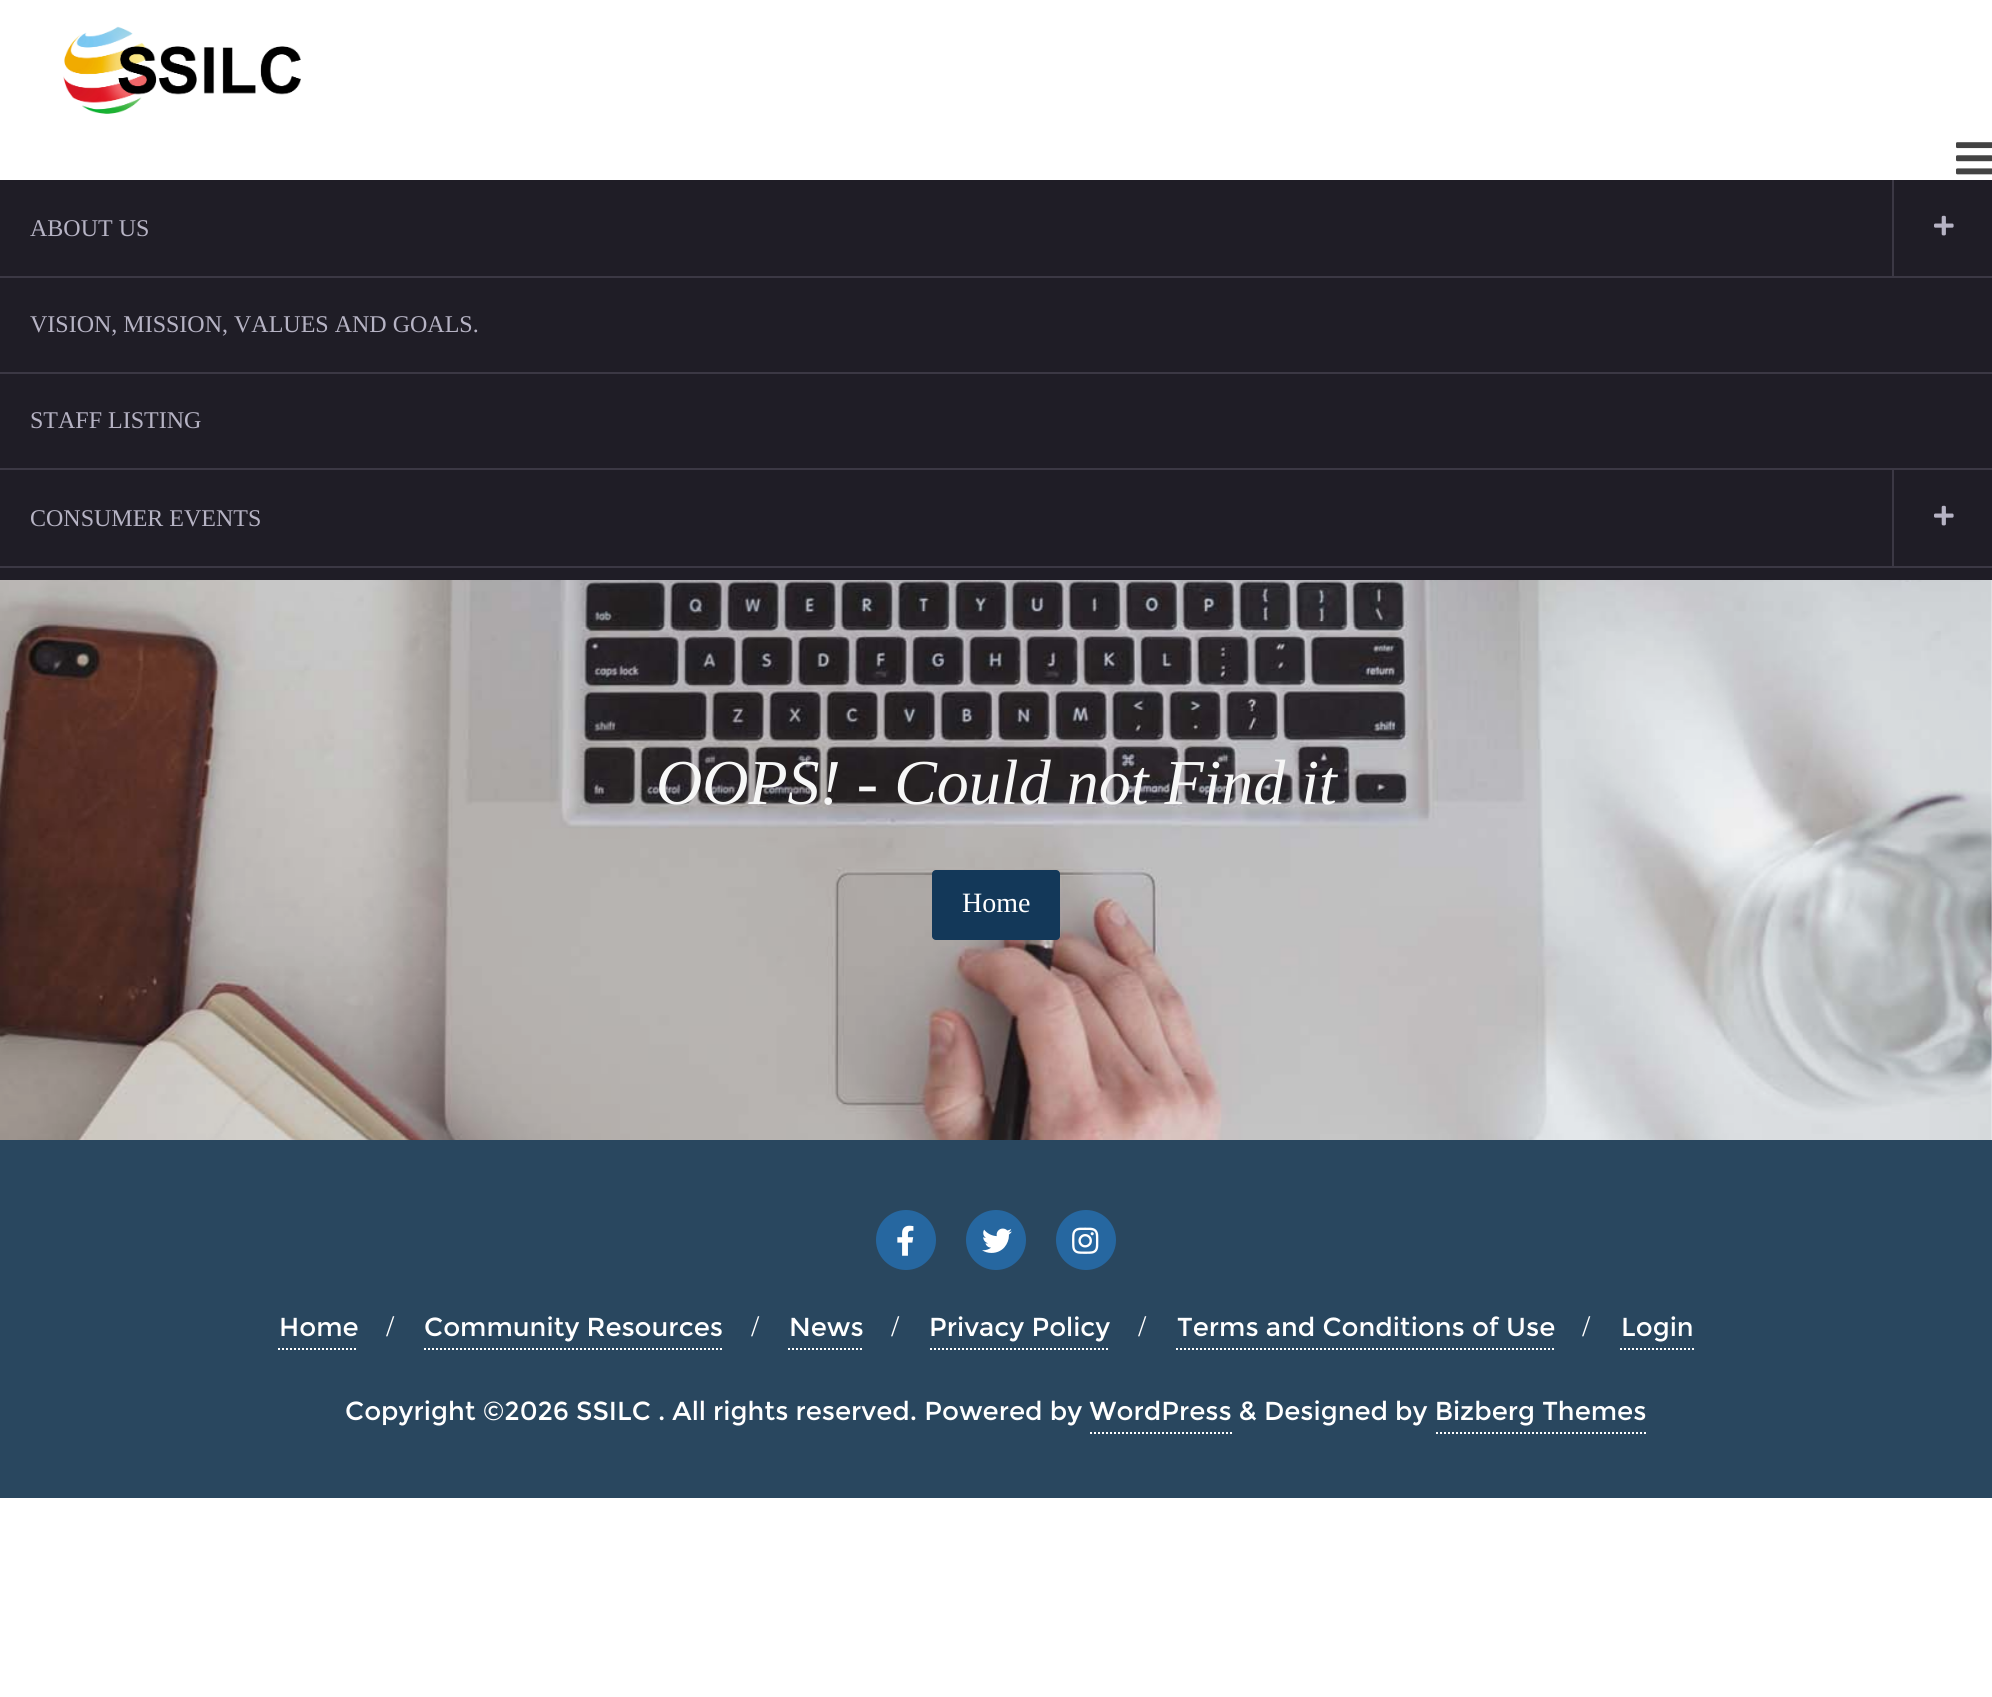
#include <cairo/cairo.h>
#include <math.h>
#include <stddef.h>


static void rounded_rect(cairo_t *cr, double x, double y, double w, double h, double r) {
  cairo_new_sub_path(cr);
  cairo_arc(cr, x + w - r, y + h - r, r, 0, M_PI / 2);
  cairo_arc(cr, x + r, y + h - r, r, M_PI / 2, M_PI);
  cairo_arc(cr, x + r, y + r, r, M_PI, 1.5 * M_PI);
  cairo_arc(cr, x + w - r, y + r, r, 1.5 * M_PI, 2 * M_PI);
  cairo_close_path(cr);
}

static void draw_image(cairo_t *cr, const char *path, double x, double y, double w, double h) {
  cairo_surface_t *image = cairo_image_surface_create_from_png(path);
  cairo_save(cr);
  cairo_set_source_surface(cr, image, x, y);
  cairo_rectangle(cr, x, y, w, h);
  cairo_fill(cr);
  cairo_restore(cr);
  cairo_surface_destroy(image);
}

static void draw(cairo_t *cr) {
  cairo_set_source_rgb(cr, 1, 1, 1);
  cairo_paint(cr);
  draw_image(cr, "images/1.png", 63, 26, 238, 88);
  draw_image(cr, "images/2.png", 1956, 142, 36, 33);
  cairo_set_source_rgb(cr, 31 / 255.0, 29 / 255.0, 38 / 255.0);
  cairo_rectangle(cr, 0, 180, 1992, 400);
  cairo_fill(cr);
  cairo_set_source_rgb(cr, 59 / 255.0, 56 / 255.0, 68 / 255.0);
  cairo_rectangle(cr, 0, 276, 1992, 2);
  cairo_fill(cr);
  cairo_rectangle(cr, 1892, 180, 2, 96);
  cairo_fill(cr);
  draw_image(cr, "images/3.png", 1934, 215, 20, 21);
  cairo_rectangle(cr, 0, 372, 1992, 2);
  cairo_fill(cr);
  cairo_rectangle(cr, 0, 468, 1992, 2);
  cairo_fill(cr);
  cairo_rectangle(cr, 0, 566, 1992, 2);
  cairo_fill(cr);
  cairo_rectangle(cr, 1892, 470, 2, 96);
  cairo_fill(cr);
  draw_image(cr, "images/3.png", 1934, 505, 20, 21);
  draw_image(cr, "images/4.png", 0, 580, 1992, 560);
  cairo_set_source_rgb(cr, 19 / 255.0, 56 / 255.0, 89 / 255.0);
  rounded_rect(cr, 932, 870, 128, 70, 4);
  cairo_fill(cr);
  cairo_set_source_rgb(cr, 41 / 255.0, 71 / 255.0, 95 / 255.0);
  cairo_rectangle(cr, 0, 1140, 1992, 358);
  cairo_fill(cr);
  cairo_set_source_rgb(cr, 38 / 255.0, 103 / 255.0, 160 / 255.0);
  cairo_arc(cr, 906, 1240, 30, 0, 2 * M_PI);
  cairo_fill(cr);
  draw_image(cr, "images/5.png", 897, 1225, 17, 31);
  cairo_arc(cr, 996, 1240, 30, 0, 2 * M_PI);
  cairo_fill(cr);
  draw_image(cr, "images/6.png", 982, 1228, 30, 25);
  cairo_arc(cr, 1086, 1240, 30, 0, 2 * M_PI);
  cairo_fill(cr);
  draw_image(cr, "images/7.png", 1072, 1227, 27, 27);
  cairo_new_path(cr);
  cairo_move_to(cr, 278, 1349);
  cairo_line_to(cr, 358, 1349);
  cairo_set_source_rgb(cr, 1, 1, 1);
  cairo_set_dash(cr, (double[]){2, 2}, 2, 0);
  cairo_stroke(cr);
  cairo_new_path(cr);
  cairo_move_to(cr, 424, 1349);
  cairo_line_to(cr, 724, 1349);
  cairo_stroke(cr);
  cairo_new_path(cr);
  cairo_move_to(cr, 788, 1349);
  cairo_line_to(cr, 864, 1349);
  cairo_stroke(cr);
  cairo_new_path(cr);
  cairo_move_to(cr, 930, 1349);
  cairo_line_to(cr, 1110, 1349);
  cairo_stroke(cr);
  cairo_new_path(cr);
  cairo_move_to(cr, 1176, 1349);
  cairo_line_to(cr, 1554, 1349);
  cairo_stroke(cr);
  cairo_new_path(cr);
  cairo_move_to(cr, 1620, 1349);
  cairo_line_to(cr, 1694, 1349);
  cairo_stroke(cr);
  cairo_new_path(cr);
  cairo_move_to(cr, 1090, 1433);
  cairo_line_to(cr, 1232, 1433);
  cairo_stroke(cr);
  cairo_new_path(cr);
  cairo_move_to(cr, 1436, 1433);
  cairo_line_to(cr, 1646, 1433);
  cairo_stroke(cr);
  cairo_select_font_face(cr, "Liberation Serif", CAIRO_FONT_SLANT_NORMAL, CAIRO_FONT_WEIGHT_NORMAL);
  cairo_set_font_size(cr, 24);
  cairo_set_source_rgb(cr, 182 / 255.0, 179 / 255.0, 196 / 255.0);
  cairo_move_to(cr, 30, 236);
  cairo_show_text(cr, "ABOUT US");
  cairo_move_to(cr, 30, 332);
  cairo_show_text(cr, "VISION, MISSION, VALUES AND GOALS.");
  cairo_move_to(cr, 30, 428);
  cairo_show_text(cr, "STAFF LISTING");
  cairo_move_to(cr, 30, 526);
  cairo_show_text(cr, "CONSUMER EVENTS");
  cairo_select_font_face(cr, "Liberation Serif", CAIRO_FONT_SLANT_ITALIC, CAIRO_FONT_WEIGHT_NORMAL);
  cairo_set_font_size(cr, 64);
  cairo_set_source_rgb(cr, 247 / 255.0, 247 / 255.0, 247 / 255.0);
  cairo_move_to(cr, 656, 804);
  cairo_show_text(cr, "OOPS! - Could not Find it");
  cairo_select_font_face(cr, "Liberation Serif", CAIRO_FONT_SLANT_NORMAL, CAIRO_FONT_WEIGHT_NORMAL);
  cairo_set_font_size(cr, 28);
  cairo_set_source_rgb(cr, 1, 1, 1);
  cairo_move_to(cr, 962, 912);
  cairo_show_text(cr, "Home");
  cairo_select_font_face(cr, "Montserrat", CAIRO_FONT_SLANT_NORMAL, CAIRO_FONT_WEIGHT_NORMAL);
  cairo_set_font_size(cr, 26);
  cairo_move_to(cr, 279, 1336);
  cairo_show_text(cr, "Home");
  cairo_select_font_face(cr, "Liberation Serif", CAIRO_FONT_SLANT_NORMAL, CAIRO_FONT_WEIGHT_NORMAL);
  cairo_set_font_size(cr, 30);
  cairo_move_to(cr, 386, 1336);
  cairo_show_text(cr, "/");
  cairo_select_font_face(cr, "Montserrat", CAIRO_FONT_SLANT_NORMAL, CAIRO_FONT_WEIGHT_NORMAL);
  cairo_set_font_size(cr, 26);
  cairo_move_to(cr, 424, 1336);
  cairo_show_text(cr, "Community Resources");
  cairo_select_font_face(cr, "Liberation Serif", CAIRO_FONT_SLANT_NORMAL, CAIRO_FONT_WEIGHT_NORMAL);
  cairo_set_font_size(cr, 30);
  cairo_move_to(cr, 751, 1336);
  cairo_show_text(cr, "/");
  cairo_select_font_face(cr, "Montserrat", CAIRO_FONT_SLANT_NORMAL, CAIRO_FONT_WEIGHT_NORMAL);
  cairo_set_font_size(cr, 26);
  cairo_move_to(cr, 789, 1336);
  cairo_show_text(cr, "News");
  cairo_select_font_face(cr, "Liberation Serif", CAIRO_FONT_SLANT_NORMAL, CAIRO_FONT_WEIGHT_NORMAL);
  cairo_set_font_size(cr, 30);
  cairo_move_to(cr, 891, 1336);
  cairo_show_text(cr, "/");
  cairo_select_font_face(cr, "Montserrat", CAIRO_FONT_SLANT_NORMAL, CAIRO_FONT_WEIGHT_NORMAL);
  cairo_set_font_size(cr, 26);
  cairo_move_to(cr, 929, 1336);
  cairo_show_text(cr, "Privacy Policy");
  cairo_select_font_face(cr, "Liberation Serif", CAIRO_FONT_SLANT_NORMAL, CAIRO_FONT_WEIGHT_NORMAL);
  cairo_set_font_size(cr, 30);
  cairo_move_to(cr, 1138, 1336);
  cairo_show_text(cr, "/");
  cairo_select_font_face(cr, "Montserrat", CAIRO_FONT_SLANT_NORMAL, CAIRO_FONT_WEIGHT_NORMAL);
  cairo_set_font_size(cr, 26);
  cairo_move_to(cr, 1177, 1336);
  cairo_show_text(cr, "Terms and Conditions of Use");
  cairo_select_font_face(cr, "Liberation Serif", CAIRO_FONT_SLANT_NORMAL, CAIRO_FONT_WEIGHT_NORMAL);
  cairo_set_font_size(cr, 30);
  cairo_move_to(cr, 1582, 1336);
  cairo_show_text(cr, "/");
  cairo_select_font_face(cr, "Montserrat", CAIRO_FONT_SLANT_NORMAL, CAIRO_FONT_WEIGHT_NORMAL);
  cairo_set_font_size(cr, 26);
  cairo_move_to(cr, 1621, 1336);
  cairo_show_text(cr, "Login");
  cairo_move_to(cr, 345, 1420);
  cairo_show_text(cr, "Copyright ©2026 SSILC . All rights reserved. Powered by WordPress & Designed by Bizberg Themes");
}

int main(void) {
  cairo_surface_t *surface = cairo_image_surface_create(CAIRO_FORMAT_RGB24, 1992, 1697);
  cairo_t *cr = cairo_create(surface);
  cairo_font_options_t *options = cairo_font_options_create();
  cairo_font_options_set_hint_metrics(options, CAIRO_HINT_METRICS_OFF);
  cairo_font_options_set_hint_style(options, CAIRO_HINT_STYLE_NONE);
  cairo_set_font_options(cr, options);
  cairo_set_miter_limit(cr, 4);
  draw(cr);
  cairo_surface_write_to_png(surface, "out.png");
  cairo_font_options_destroy(options);
  cairo_destroy(cr);
  cairo_surface_destroy(surface);
  return 0;
}
